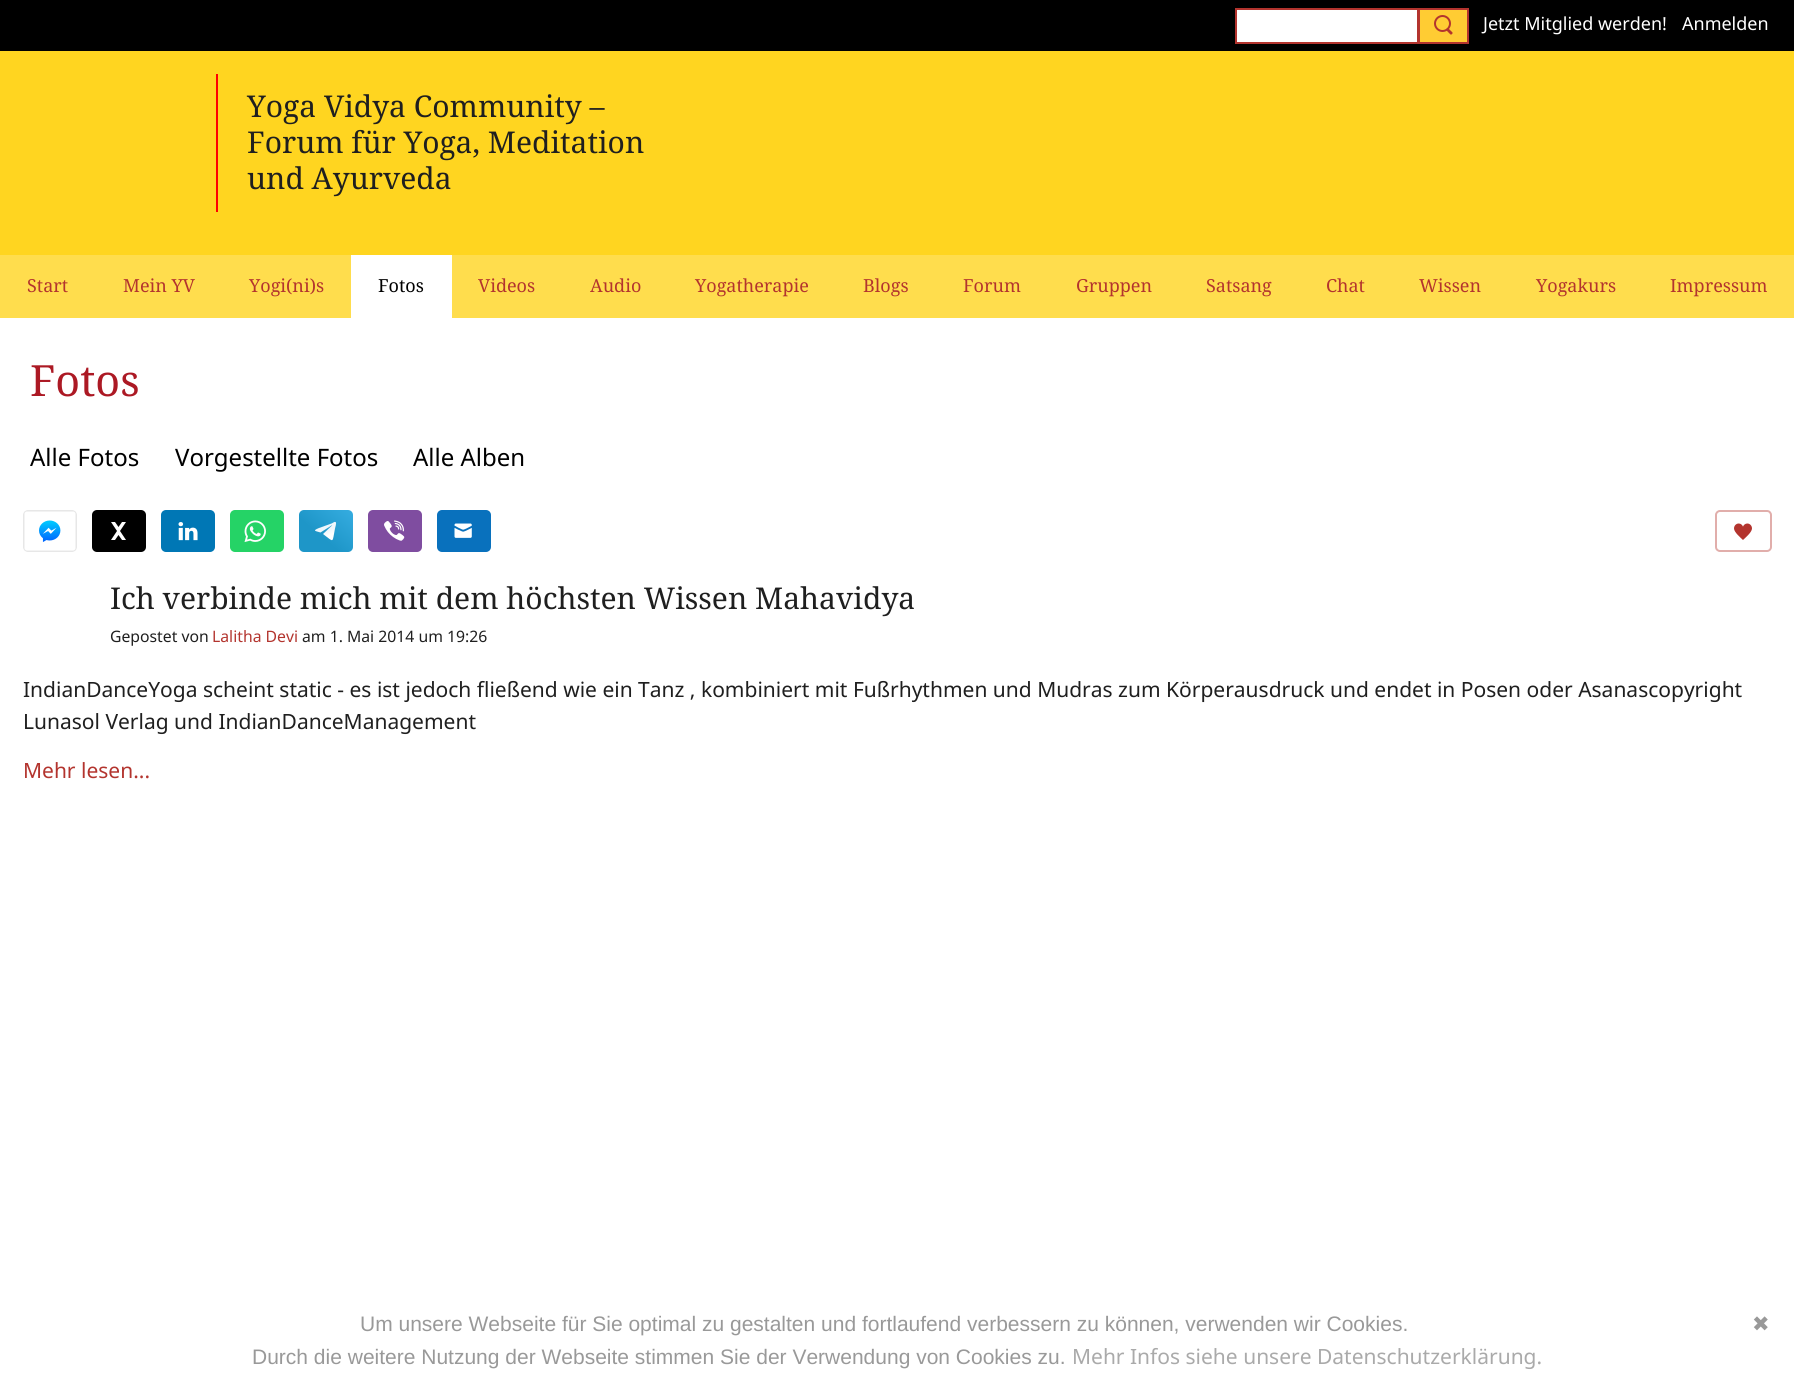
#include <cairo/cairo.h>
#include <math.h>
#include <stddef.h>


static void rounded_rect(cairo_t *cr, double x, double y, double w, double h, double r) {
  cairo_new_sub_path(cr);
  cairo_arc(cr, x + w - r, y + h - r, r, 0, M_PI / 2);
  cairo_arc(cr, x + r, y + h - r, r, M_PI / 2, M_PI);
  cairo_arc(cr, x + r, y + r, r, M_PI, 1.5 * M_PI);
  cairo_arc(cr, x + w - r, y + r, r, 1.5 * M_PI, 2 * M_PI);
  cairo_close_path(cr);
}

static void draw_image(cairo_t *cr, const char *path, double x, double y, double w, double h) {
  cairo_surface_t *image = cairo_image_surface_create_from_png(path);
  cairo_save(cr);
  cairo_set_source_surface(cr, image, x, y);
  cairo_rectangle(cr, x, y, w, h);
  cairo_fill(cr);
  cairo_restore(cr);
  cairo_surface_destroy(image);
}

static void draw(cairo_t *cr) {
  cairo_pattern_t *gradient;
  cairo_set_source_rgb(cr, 1, 213 / 255.0, 32 / 255.0);
  cairo_paint(cr);
  cairo_set_source_rgb(cr, 0, 0, 0);
  cairo_rectangle(cr, 0, 0, 1794, 51);
  cairo_fill(cr);
  cairo_set_source_rgb(cr, 1, 1, 1);
  cairo_rectangle(cr, 1236, 9, 182, 34);
  cairo_fill_preserve(cr);
  cairo_set_source_rgb(cr, 179 / 255.0, 52 / 255.0, 46 / 255.0);
  cairo_stroke(cr);
  cairo_set_source_rgb(cr, 1, 204 / 255.0, 51 / 255.0);
  cairo_rectangle(cr, 1419, 9, 49, 34);
  cairo_fill_preserve(cr);
  cairo_set_source_rgb(cr, 179 / 255.0, 52 / 255.0, 46 / 255.0);
  cairo_stroke(cr);
  cairo_arc(cr, 1442.5, 23.5, 7.5, 0, 2 * M_PI);
  cairo_stroke(cr);
  cairo_new_path(cr);
  cairo_move_to(cr, 1449, 29);
  cairo_line_to(cr, 1452.5, 32.5);
  cairo_curve_to(cr, 1453, 33.5, 1451.5, 35, 1450.5, 34.5);
  cairo_line_to(cr, 1446.5, 30.5);
  cairo_curve_to(cr, 1445.5, 29, 1447.5, 27.5, 1449, 29);
  cairo_close_path(cr);
  cairo_fill(cr);
  cairo_set_source_rgb(cr, 1, 0, 0);
  cairo_rectangle(cr, 216, 74, 2, 138);
  cairo_fill(cr);
  cairo_set_source_rgb(cr, 1, 221 / 255.0, 77 / 255.0);
  cairo_rectangle(cr, 0, 255, 1794, 63);
  cairo_fill(cr);
  cairo_set_source_rgb(cr, 1, 1, 1);
  cairo_rectangle(cr, 351, 255, 101, 63);
  cairo_fill(cr);
  cairo_rectangle(cr, 0, 318, 1794, 1061);
  cairo_fill(cr);
  draw_image(cr, "images/1.png", 23, 510, 54, 42);
  cairo_set_source_rgb(cr, 0, 0, 0);
  rounded_rect(cr, 92, 510, 54, 42, 5);
  cairo_fill(cr);
  cairo_set_source_rgb(cr, 1, 1, 1);
  cairo_set_fill_rule(cr, CAIRO_FILL_RULE_EVEN_ODD);
  cairo_new_path(cr);
  cairo_move_to(cr, 111, 522);
  cairo_line_to(cr, 117, 531);
  cairo_line_to(cr, 111, 540);
  cairo_line_to(cr, 115, 540);
  cairo_line_to(cr, 118.5, 535);
  cairo_line_to(cr, 122, 540);
  cairo_line_to(cr, 126, 540);
  cairo_line_to(cr, 120, 531);
  cairo_line_to(cr, 126, 522);
  cairo_line_to(cr, 122, 522);
  cairo_line_to(cr, 118.5, 527);
  cairo_line_to(cr, 115, 522);
  cairo_close_path(cr);
  cairo_fill(cr);
  draw_image(cr, "images/2.png", 161, 510, 54, 42);
  draw_image(cr, "images/3.png", 230, 510, 54, 42);
  gradient = cairo_pattern_create_linear(358, 511, 330, 544);
  cairo_pattern_add_color_stop_rgba(gradient, 0, 55 / 255.0, 174 / 255.0, 226 / 255.0, 1);
  cairo_pattern_add_color_stop_rgba(gradient, 1, 30 / 255.0, 150 / 255.0, 200 / 255.0, 1);
  cairo_set_source(cr, gradient);
  cairo_pattern_destroy(gradient);
  rounded_rect(cr, 299, 510, 54, 42, 5);
  cairo_fill(cr);
  gradient = cairo_pattern_create_linear(328, 530, 330, 535);
  cairo_pattern_add_color_stop_rgba(gradient, 0, 239 / 255.0, 247 / 255.0, 252 / 255.0, 1);
  cairo_pattern_add_color_stop_rgba(gradient, 1, 1, 1, 1, 1);
  cairo_set_source(cr, gradient);
  cairo_pattern_destroy(gradient);
  cairo_set_fill_rule(cr, CAIRO_FILL_RULE_WINDING);
  cairo_new_path(cr);
  cairo_move_to(cr, 323, 534);
  cairo_curve_to(cr, 334.5, 542.5, 332, 543.5, 335, 528.5);
  cairo_curve_to(cr, 335, 528, 337, 522.5, 335.5, 522);
  cairo_curve_to(cr, 334, 521.5, 333, 523, 331.5, 523.5);
  cairo_line_to(cr, 319, 528);
  cairo_curve_to(cr, 311.5, 531, 316, 531, 320.5, 532.5);
  cairo_line_to(cr, 331.5, 525.5);
  cairo_curve_to(cr, 332, 525, 332.5, 525.5, 332, 525.5);
  cairo_fill(cr);
  draw_image(cr, "images/4.png", 368, 510, 54, 42);
  draw_image(cr, "images/5.png", 437, 510, 54, 42);
  rounded_rect(cr, 1716, 511, 55, 40, 4);
  cairo_set_source_rgb(cr, 225 / 255.0, 174 / 255.0, 171 / 255.0);
  cairo_stroke(cr);
  draw_image(cr, "images/6.png", 1734, 523, 18, 17);
  cairo_select_font_face(cr, "Noto Sans", CAIRO_FONT_SLANT_NORMAL, CAIRO_FONT_WEIGHT_NORMAL);
  cairo_set_font_size(cr, 18);
  cairo_set_source_rgb(cr, 1, 1, 1);
  cairo_move_to(cr, 1483, 30);
  cairo_show_text(cr, "Jetzt Mitglied werden!");
  cairo_move_to(cr, 1682, 30);
  cairo_show_text(cr, "Anmelden");
  cairo_select_font_face(cr, "Noto Serif", CAIRO_FONT_SLANT_NORMAL, CAIRO_FONT_WEIGHT_NORMAL);
  cairo_set_font_size(cr, 30);
  cairo_set_source_rgb(cr, 31 / 255.0, 31 / 255.0, 31 / 255.0);
  cairo_move_to(cr, 247, 117);
  cairo_show_text(cr, "Yoga Vidya Community –");
  cairo_move_to(cr, 247, 153);
  cairo_show_text(cr, "Forum für Yoga, Meditation");
  cairo_move_to(cr, 247, 189);
  cairo_show_text(cr, "und Ayurveda");
  cairo_set_font_size(cr, 18);
  cairo_set_source_rgb(cr, 179 / 255.0, 52 / 255.0, 46 / 255.0);
  cairo_move_to(cr, 27, 292);
  cairo_show_text(cr, "Start");
  cairo_move_to(cr, 123, 292);
  cairo_show_text(cr, "Mein YV");
  cairo_move_to(cr, 249, 292);
  cairo_show_text(cr, "Yogi(ni)s");
  cairo_set_source_rgb(cr, 0, 0, 0);
  cairo_move_to(cr, 378, 292);
  cairo_show_text(cr, "Fotos");
  cairo_set_source_rgb(cr, 179 / 255.0, 52 / 255.0, 46 / 255.0);
  cairo_move_to(cr, 478, 292);
  cairo_show_text(cr, "Videos");
  cairo_move_to(cr, 590, 292);
  cairo_show_text(cr, "Audio");
  cairo_move_to(cr, 695, 292);
  cairo_show_text(cr, "Yogatherapie");
  cairo_move_to(cr, 863, 292);
  cairo_show_text(cr, "Blogs");
  cairo_move_to(cr, 963, 292);
  cairo_show_text(cr, "Forum");
  cairo_move_to(cr, 1076, 292);
  cairo_show_text(cr, "Gruppen");
  cairo_move_to(cr, 1206, 292);
  cairo_show_text(cr, "Satsang");
  cairo_move_to(cr, 1326, 292);
  cairo_show_text(cr, "Chat");
  cairo_move_to(cr, 1419, 292);
  cairo_show_text(cr, "Wissen");
  cairo_move_to(cr, 1536, 292);
  cairo_show_text(cr, "Yogakurs");
  cairo_move_to(cr, 1670, 292);
  cairo_show_text(cr, "Impressum");
  cairo_set_font_size(cr, 43);
  cairo_set_source_rgb(cr, 172 / 255.0, 25 / 255.0, 36 / 255.0);
  cairo_move_to(cr, 30, 396);
  cairo_show_text(cr, "Fotos");
  cairo_select_font_face(cr, "Noto Sans", CAIRO_FONT_SLANT_NORMAL, CAIRO_FONT_WEIGHT_NORMAL);
  cairo_set_font_size(cr, 24);
  cairo_set_source_rgb(cr, 0, 0, 0);
  cairo_move_to(cr, 30, 466);
  cairo_show_text(cr, "Alle Fotos");
  cairo_move_to(cr, 175, 466);
  cairo_show_text(cr, "Vorgestellte Fotos");
  cairo_move_to(cr, 413, 466);
  cairo_show_text(cr, "Alle Alben");
  cairo_select_font_face(cr, "Noto Serif", CAIRO_FONT_SLANT_NORMAL, CAIRO_FONT_WEIGHT_NORMAL);
  cairo_set_font_size(cr, 30);
  cairo_set_source_rgb(cr, 31 / 255.0, 31 / 255.0, 31 / 255.0);
  cairo_move_to(cr, 110, 609);
  cairo_show_text(cr, "Ich verbinde mich mit dem höchsten Wissen Mahavidya");
  cairo_select_font_face(cr, "Noto Sans", CAIRO_FONT_SLANT_NORMAL, CAIRO_FONT_WEIGHT_NORMAL);
  cairo_set_font_size(cr, 15.75);
  cairo_move_to(cr, 110, 642);
  cairo_show_text(cr, "Gepostet von");
  cairo_set_source_rgb(cr, 179 / 255.0, 52 / 255.0, 46 / 255.0);
  cairo_move_to(cr, 212, 642);
  cairo_show_text(cr, "Lalitha Devi");
  cairo_set_source_rgb(cr, 31 / 255.0, 31 / 255.0, 31 / 255.0);
  cairo_move_to(cr, 302, 642);
  cairo_show_text(cr, "am 1. Mai 2014 um 19:26");
  cairo_set_font_size(cr, 21);
  cairo_move_to(cr, 23, 697);
  cairo_show_text(cr, "IndianDanceYoga scheint static - es ist jedoch fließend wie ein Tanz , kombiniert mit Fußrhythmen und Mudras zum Körperausdruck und endet in Posen oder Asanascopyright");
  cairo_move_to(cr, 23, 729);
  cairo_show_text(cr, "Lunasol Verlag und IndianDanceManagement");
  cairo_set_source_rgb(cr, 179 / 255.0, 52 / 255.0, 46 / 255.0);
  cairo_move_to(cr, 23, 778);
  cairo_show_text(cr, "Mehr lesen...");
  cairo_select_font_face(cr, "Liberation Sans", CAIRO_FONT_SLANT_NORMAL, CAIRO_FONT_WEIGHT_NORMAL);
  cairo_set_source_rgb(cr, 153 / 255.0, 153 / 255.0, 153 / 255.0);
  cairo_move_to(cr, 360, 1331);
  cairo_show_text(cr, "Um unsere Webseite für Sie optimal zu gestalten und fortlaufend verbessern zu können, verwenden wir Cookies.");
  cairo_select_font_face(cr, "DejaVu Sans", CAIRO_FONT_SLANT_NORMAL, CAIRO_FONT_WEIGHT_NORMAL);
  cairo_move_to(cr, 1752, 1331);
  cairo_show_text(cr, "✖");
  cairo_select_font_face(cr, "Liberation Sans", CAIRO_FONT_SLANT_NORMAL, CAIRO_FONT_WEIGHT_NORMAL);
  cairo_move_to(cr, 252, 1364);
  cairo_show_text(cr, "Durch die weitere Nutzung der Webseite stimmen Sie der Verwendung von Cookies zu.");
  cairo_select_font_face(cr, "Noto Sans", CAIRO_FONT_SLANT_NORMAL, CAIRO_FONT_WEIGHT_NORMAL);
  cairo_set_source_rgb(cr, 170 / 255.0, 170 / 255.0, 170 / 255.0);
  cairo_move_to(cr, 1072, 1364);
  cairo_show_text(cr, "Mehr Infos siehe unsere Datenschutzerklärung.");
}

int main(void) {
  cairo_surface_t *surface = cairo_image_surface_create(CAIRO_FORMAT_RGB24, 1794, 1379);
  cairo_t *cr = cairo_create(surface);
  cairo_font_options_t *options = cairo_font_options_create();
  cairo_font_options_set_hint_metrics(options, CAIRO_HINT_METRICS_OFF);
  cairo_font_options_set_hint_style(options, CAIRO_HINT_STYLE_NONE);
  cairo_set_font_options(cr, options);
  cairo_set_miter_limit(cr, 4);
  draw(cr);
  cairo_surface_write_to_png(surface, "out.png");
  cairo_font_options_destroy(options);
  cairo_destroy(cr);
  cairo_surface_destroy(surface);
  return 0;
}
